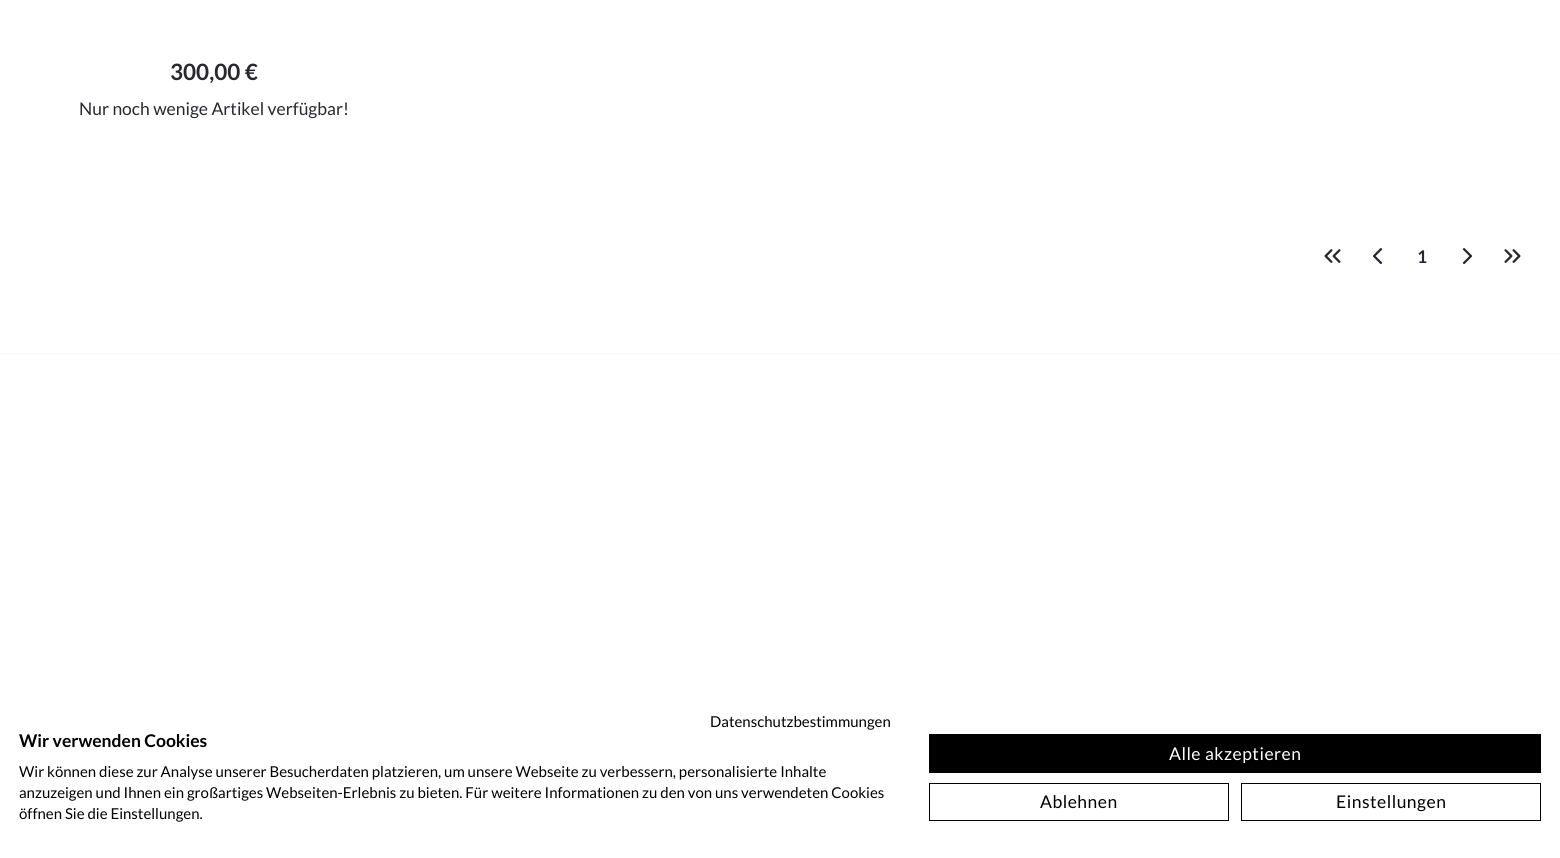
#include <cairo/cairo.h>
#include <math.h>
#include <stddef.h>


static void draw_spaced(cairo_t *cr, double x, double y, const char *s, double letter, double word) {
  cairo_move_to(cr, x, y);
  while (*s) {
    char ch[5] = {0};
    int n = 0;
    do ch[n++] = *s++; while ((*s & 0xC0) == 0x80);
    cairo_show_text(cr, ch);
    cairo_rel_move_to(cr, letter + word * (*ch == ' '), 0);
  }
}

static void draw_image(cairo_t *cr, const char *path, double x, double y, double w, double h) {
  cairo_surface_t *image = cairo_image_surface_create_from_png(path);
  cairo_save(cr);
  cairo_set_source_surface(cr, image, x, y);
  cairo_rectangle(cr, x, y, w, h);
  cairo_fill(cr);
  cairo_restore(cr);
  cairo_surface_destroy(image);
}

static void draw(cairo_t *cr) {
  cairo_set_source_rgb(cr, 1, 1, 1);
  cairo_paint(cr);
  draw_image(cr, "images/1.png", 1324, 249, 17, 14);
  draw_image(cr, "images/2.png", 1372, 248, 11, 16);
  draw_image(cr, "images/3.png", 1462, 248, 11, 16);
  draw_image(cr, "images/4.png", 1504, 249, 17, 14);
  cairo_set_source_rgb(cr, 248 / 255.0, 248 / 255.0, 248 / 255.0);
  cairo_rectangle(cr, 0, 353, 1560, 1);
  cairo_fill(cr);
  cairo_set_source_rgb(cr, 0, 0, 0);
  cairo_rectangle(cr, 929, 734, 612, 39);
  cairo_fill(cr);
  cairo_rectangle(cr, 929.5, 783.5, 299, 37);
  cairo_set_line_width(cr, 1);
  cairo_stroke(cr);
  cairo_rectangle(cr, 1241.5, 783.5, 299, 37);
  cairo_stroke(cr);
  cairo_select_font_face(cr, "Lato", CAIRO_FONT_SLANT_NORMAL, CAIRO_FONT_WEIGHT_BOLD);
  cairo_set_font_size(cr, 22.5);
  cairo_set_source_rgb(cr, 41 / 255.0, 40 / 255.0, 47 / 255.0);
  cairo_move_to(cr, 170, 80);
  cairo_show_text(cr, "300,00 €");
  cairo_select_font_face(cr, "Lato", CAIRO_FONT_SLANT_NORMAL, CAIRO_FONT_WEIGHT_NORMAL);
  cairo_set_font_size(cr, 17.5);
  cairo_move_to(cr, 79, 115);
  cairo_show_text(cr, "Nur noch wenige Artikel verfügbar!");
  cairo_select_font_face(cr, "Lato", CAIRO_FONT_SLANT_NORMAL, CAIRO_FONT_WEIGHT_BOLD);
  draw_spaced(cr, 1417, 263, "1", 0.5, 0);
  cairo_select_font_face(cr, "Lato", CAIRO_FONT_SLANT_NORMAL, CAIRO_FONT_WEIGHT_NORMAL);
  cairo_set_font_size(cr, 15);
  cairo_set_source_rgb(cr, 0, 0, 0);
  cairo_move_to(cr, 710, 727);
  cairo_show_text(cr, "Datenschutzbestimmungen");
  cairo_select_font_face(cr, "Lato", CAIRO_FONT_SLANT_NORMAL, CAIRO_FONT_WEIGHT_BOLD);
  cairo_set_font_size(cr, 17.5);
  cairo_move_to(cr, 19, 747);
  cairo_show_text(cr, "Wir verwenden Cookies");
  cairo_select_font_face(cr, "Lato", CAIRO_FONT_SLANT_NORMAL, CAIRO_FONT_WEIGHT_NORMAL);
  cairo_set_font_size(cr, 15);
  cairo_move_to(cr, 19, 777);
  cairo_show_text(cr, "Wir können diese zur Analyse unserer Besucherdaten platzieren, um unsere Webseite zu verbessern, personalisierte Inhalte");
  cairo_move_to(cr, 19, 798);
  cairo_show_text(cr, "anzuzeigen und Ihnen ein großartiges Webseiten-Erlebnis zu bieten. Für weitere Informationen zu den von uns verwendeten Cookies");
  cairo_move_to(cr, 19, 819);
  cairo_show_text(cr, "öffnen Sie die Einstellungen.");
  cairo_set_font_size(cr, 17.5);
  cairo_set_source_rgb(cr, 1, 1, 1);
  draw_spaced(cr, 1169, 760, "Alle akzeptieren", 0.5, 0);
  cairo_set_source_rgb(cr, 0, 0, 0);
  draw_spaced(cr, 1040, 808, "Ablehnen", 0.5, 0);
  draw_spaced(cr, 1336, 808, "Einstellungen", 0.5, 0);
}

int main(void) {
  cairo_surface_t *surface = cairo_image_surface_create(CAIRO_FORMAT_RGB24, 1560, 858);
  cairo_t *cr = cairo_create(surface);
  cairo_font_options_t *options = cairo_font_options_create();
  cairo_font_options_set_hint_metrics(options, CAIRO_HINT_METRICS_OFF);
  cairo_font_options_set_hint_style(options, CAIRO_HINT_STYLE_NONE);
  cairo_set_font_options(cr, options);
  cairo_set_miter_limit(cr, 4);
  draw(cr);
  cairo_surface_write_to_png(surface, "out.png");
  cairo_font_options_destroy(options);
  cairo_destroy(cr);
  cairo_surface_destroy(surface);
  return 0;
}
